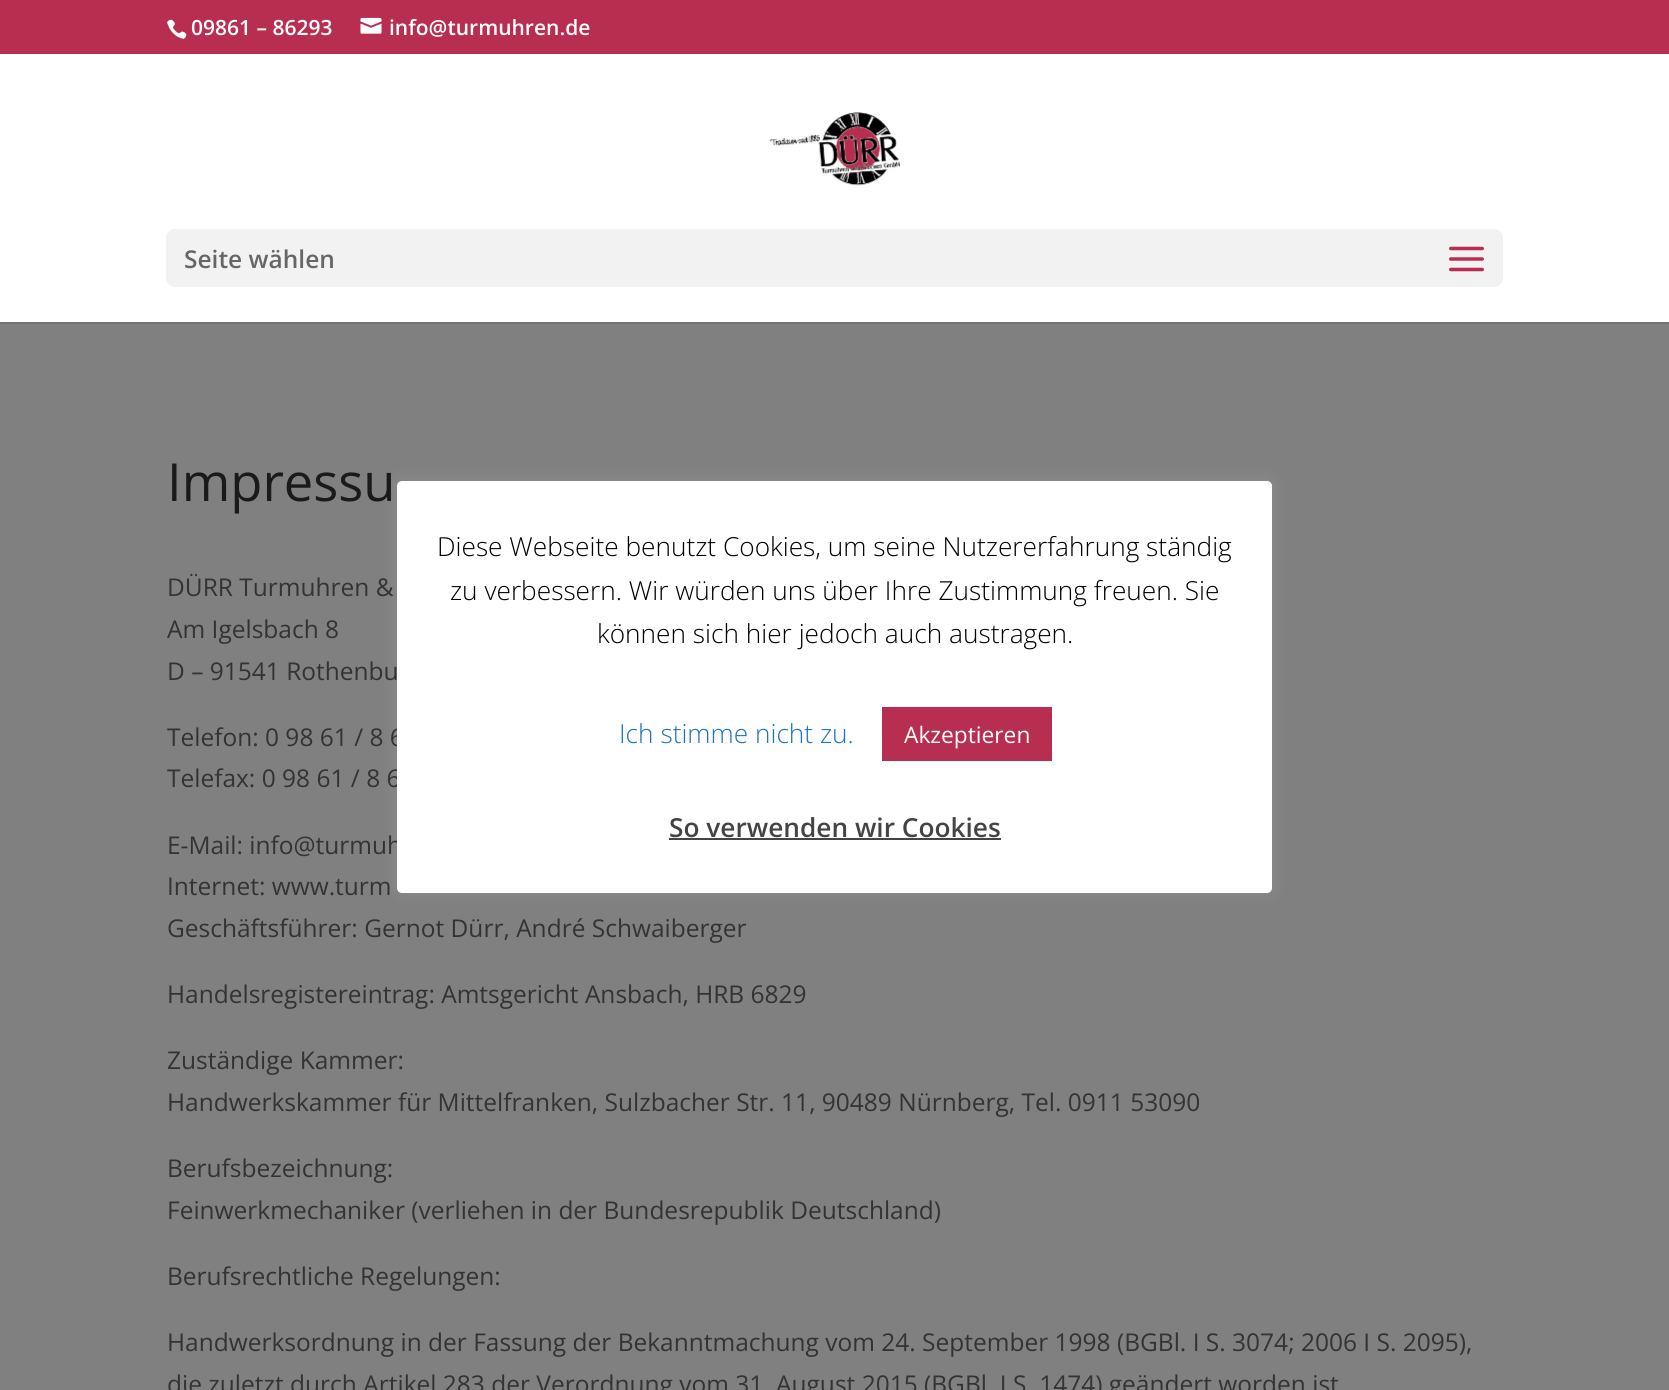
#include <cairo/cairo.h>
#include <math.h>
#include <stddef.h>


static void rounded_rect(cairo_t *cr, double x, double y, double w, double h, double r) {
  cairo_new_sub_path(cr);
  cairo_arc(cr, x + w - r, y + h - r, r, 0, M_PI / 2);
  cairo_arc(cr, x + r, y + h - r, r, M_PI / 2, M_PI);
  cairo_arc(cr, x + r, y + r, r, M_PI, 1.5 * M_PI);
  cairo_arc(cr, x + w - r, y + r, r, 1.5 * M_PI, 2 * M_PI);
  cairo_close_path(cr);
}

static void draw_shadow(cairo_t *cr, double x, double y, double w, double h, double r, double blur, double alpha) {
  cairo_push_group_with_content(cr, CAIRO_CONTENT_ALPHA);
  cairo_set_operator(cr, CAIRO_OPERATOR_SOURCE);
  for (int i = 15; i >= -15 && fmin(w, h) + blur * i / 3 > 0; i -= 2) {
    double e = blur * i / 6;
    cairo_set_source_rgba(cr, 0, 0, 0, alpha * erfc((i - 1) / 8.5) / 2);
    rounded_rect(cr, x - e, y - e, w + 2 * e, h + 2 * e, fmax(0, fmin(r + e + blur * .6, fmin(w, h) / 2 + e)));
    cairo_fill(cr);
  }
  cairo_pattern_t *soft = cairo_pop_group(cr);
  cairo_mask(cr, soft);
  cairo_pattern_destroy(soft);
}

static void draw_image(cairo_t *cr, const char *path, double x, double y, double w, double h) {
  cairo_surface_t *image = cairo_image_surface_create_from_png(path);
  cairo_save(cr);
  cairo_set_source_surface(cr, image, x, y);
  cairo_rectangle(cr, x, y, w, h);
  cairo_fill(cr);
  cairo_restore(cr);
  cairo_surface_destroy(image);
}

static void draw(cairo_t *cr) {
  cairo_set_source_rgb(cr, 128 / 255.0, 128 / 255.0, 128 / 255.0);
  cairo_paint(cr);
  cairo_set_source_rgb(cr, 184 / 255.0, 46 / 255.0, 80 / 255.0);
  cairo_rectangle(cr, 0, 0, 1669, 54);
  cairo_fill(cr);
  draw_image(cr, "images/1.png", 167, 19, 20, 20);
  draw_image(cr, "images/2.png", 360, 17, 22, 17);
  cairo_set_source_rgb(cr, 115 / 255.0, 115 / 255.0, 115 / 255.0);
  cairo_new_path(cr);
  cairo_move_to(cr, 0, 322);
  cairo_line_to(cr, 0, 324);
  cairo_line_to(cr, 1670, 324);
  cairo_line_to(cr, 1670, 56);
  cairo_line_to(cr, 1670, 322);
  cairo_close_path(cr);
  cairo_fill(cr);
  cairo_set_source_rgb(cr, 1, 1, 1);
  cairo_rectangle(cr, 0, 54, 1669, 268);
  cairo_fill(cr);
  draw_image(cr, "images/3.png", 769, 112, 131, 74);
  cairo_set_source_rgb(cr, 242 / 255.0, 242 / 255.0, 242 / 255.0);
  rounded_rect(cr, 166, 229, 1337, 58, 9);
  cairo_fill(cr);
  draw_image(cr, "images/4.png", 1449, 246, 35, 26);
  cairo_set_source_rgb(cr, 172 / 255.0, 171 / 255.0, 171 / 255.0);
  draw_shadow(cr, 397, 480, 875, 411, 5, 9, 0.3);
  cairo_select_font_face(cr, "Open Sans SemiBold", CAIRO_FONT_SLANT_NORMAL, CAIRO_FONT_WEIGHT_NORMAL);
  cairo_set_font_size(cr, 21);
  cairo_set_source_rgb(cr, 1, 1, 1);
  cairo_move_to(cr, 191, 35);
  cairo_show_text(cr, "09861 – 86293");
  cairo_move_to(cr, 389, 35);
  cairo_show_text(cr, "info@turmuhren.de");
  cairo_set_font_size(cr, 24.5);
  cairo_set_source_rgb(cr, 102 / 255.0, 102 / 255.0, 102 / 255.0);
  cairo_move_to(cr, 184, 268);
  cairo_show_text(cr, "Seite wählen");
  cairo_select_font_face(cr, "Open Sans", CAIRO_FONT_SLANT_NORMAL, CAIRO_FONT_WEIGHT_NORMAL);
  cairo_set_font_size(cr, 52.5);
  cairo_set_source_rgb(cr, 26 / 255.0, 26 / 255.0, 26 / 255.0);
  cairo_move_to(cr, 167, 501);
  cairo_show_text(cr, "Impressu");
  cairo_set_font_size(cr, 24.5);
  cairo_set_source_rgb(cr, 51 / 255.0, 51 / 255.0, 51 / 255.0);
  cairo_move_to(cr, 167, 596);
  cairo_show_text(cr, "DÜRR Turmuhren &");
  cairo_move_to(cr, 167, 638);
  cairo_show_text(cr, "Am Igelsbach 8");
  cairo_move_to(cr, 167, 680);
  cairo_show_text(cr, "D – 91541 Rothenbu");
  cairo_move_to(cr, 167, 746);
  cairo_show_text(cr, "Telefon: 0 98 61 / 8 6");
  cairo_move_to(cr, 167, 787);
  cairo_show_text(cr, "Telefax: 0 98 61 / 8 6");
  cairo_move_to(cr, 167, 854);
  cairo_show_text(cr, "E-Mail: info@turmuh");
  cairo_move_to(cr, 167, 895);
  cairo_show_text(cr, "Internet: www.turm");
  cairo_move_to(cr, 167, 937);
  cairo_show_text(cr, "Geschäftsführer: Gernot Dürr, André Schwaiberger");
  cairo_move_to(cr, 167, 1003);
  cairo_show_text(cr, "Handelsregistereintrag: Amtsgericht Ansbach, HRB 6829");
  cairo_move_to(cr, 167, 1069);
  cairo_show_text(cr, "Zuständige Kammer:");
  cairo_move_to(cr, 167, 1111);
  cairo_show_text(cr, "Handwerkskammer für Mittelfranken, Sulzbacher Str. 11, 90489 Nürnberg, Tel. 0911 53090");
  cairo_move_to(cr, 167, 1177);
  cairo_show_text(cr, "Berufsbezeichnung:");
  cairo_move_to(cr, 167, 1219);
  cairo_show_text(cr, "Feinwerkmechaniker (verliehen in der Bundesrepublik Deutschland)");
  cairo_move_to(cr, 167, 1285);
  cairo_show_text(cr, "Berufsrechtliche Regelungen:");
  cairo_move_to(cr, 167, 1351);
  cairo_show_text(cr, "Handwerksordnung in der Fassung der Bekanntmachung vom 24. September 1998 (BGBl. I S. 3074; 2006 I S. 2095),");
  cairo_move_to(cr, 167, 1393);
  cairo_show_text(cr, "die zuletzt durch Artikel 283 der Verordnung vom 31. August 2015 (BGBl. I S. 1474) geändert worden ist");
  cairo_set_source_rgb(cr, 1, 1, 1);
  rounded_rect(cr, 397, 481, 875, 412, 5);
  cairo_fill(cr);
  cairo_select_font_face(cr, "Open Sans Light", CAIRO_FONT_SLANT_NORMAL, CAIRO_FONT_WEIGHT_NORMAL);
  cairo_set_font_size(cr, 26.25);
  cairo_set_source_rgb(cr, 0, 0, 0);
  cairo_move_to(cr, 437, 556);
  cairo_show_text(cr, "Diese Webseite benutzt Cookies, um seine Nutzererfahrung ständig");
  cairo_move_to(cr, 450, 600);
  cairo_show_text(cr, "zu verbessern. Wir würden uns über Ihre Zustimmung freuen. Sie");
  cairo_move_to(cr, 597, 643);
  cairo_show_text(cr, "können sich hier jedoch auch austragen.");
  cairo_set_source_rgb(cr, 30 / 255.0, 115 / 255.0, 190 / 255.0);
  cairo_move_to(cr, 619, 743);
  cairo_show_text(cr, "Ich stimme nicht zu.");
  cairo_set_source_rgb(cr, 184 / 255.0, 46 / 255.0, 80 / 255.0);
  cairo_rectangle(cr, 882, 707, 170, 54);
  cairo_fill(cr);
  cairo_select_font_face(cr, "Open Sans", CAIRO_FONT_SLANT_NORMAL, CAIRO_FONT_WEIGHT_NORMAL);
  cairo_set_font_size(cr, 22.75);
  cairo_set_source_rgb(cr, 1, 1, 1);
  cairo_move_to(cr, 904, 743);
  cairo_show_text(cr, "Akzeptieren");
  cairo_select_font_face(cr, "Open Sans SemiBold", CAIRO_FONT_SLANT_NORMAL, CAIRO_FONT_WEIGHT_NORMAL);
  cairo_set_font_size(cr, 26.25);
  cairo_set_source_rgb(cr, 68 / 255.0, 68 / 255.0, 68 / 255.0);
  cairo_move_to(cr, 669, 837);
  cairo_show_text(cr, "So verwenden wir Cookies");
  cairo_rectangle(cr, 669, 838, 332, 2);
  cairo_fill(cr);
}

int main(void) {
  cairo_surface_t *surface = cairo_image_surface_create(CAIRO_FORMAT_RGB24, 1669, 1390);
  cairo_t *cr = cairo_create(surface);
  cairo_font_options_t *options = cairo_font_options_create();
  cairo_font_options_set_hint_metrics(options, CAIRO_HINT_METRICS_OFF);
  cairo_font_options_set_hint_style(options, CAIRO_HINT_STYLE_NONE);
  cairo_set_font_options(cr, options);
  cairo_set_miter_limit(cr, 4);
  draw(cr);
  cairo_surface_write_to_png(surface, "out.png");
  cairo_font_options_destroy(options);
  cairo_destroy(cr);
  cairo_surface_destroy(surface);
  return 0;
}
